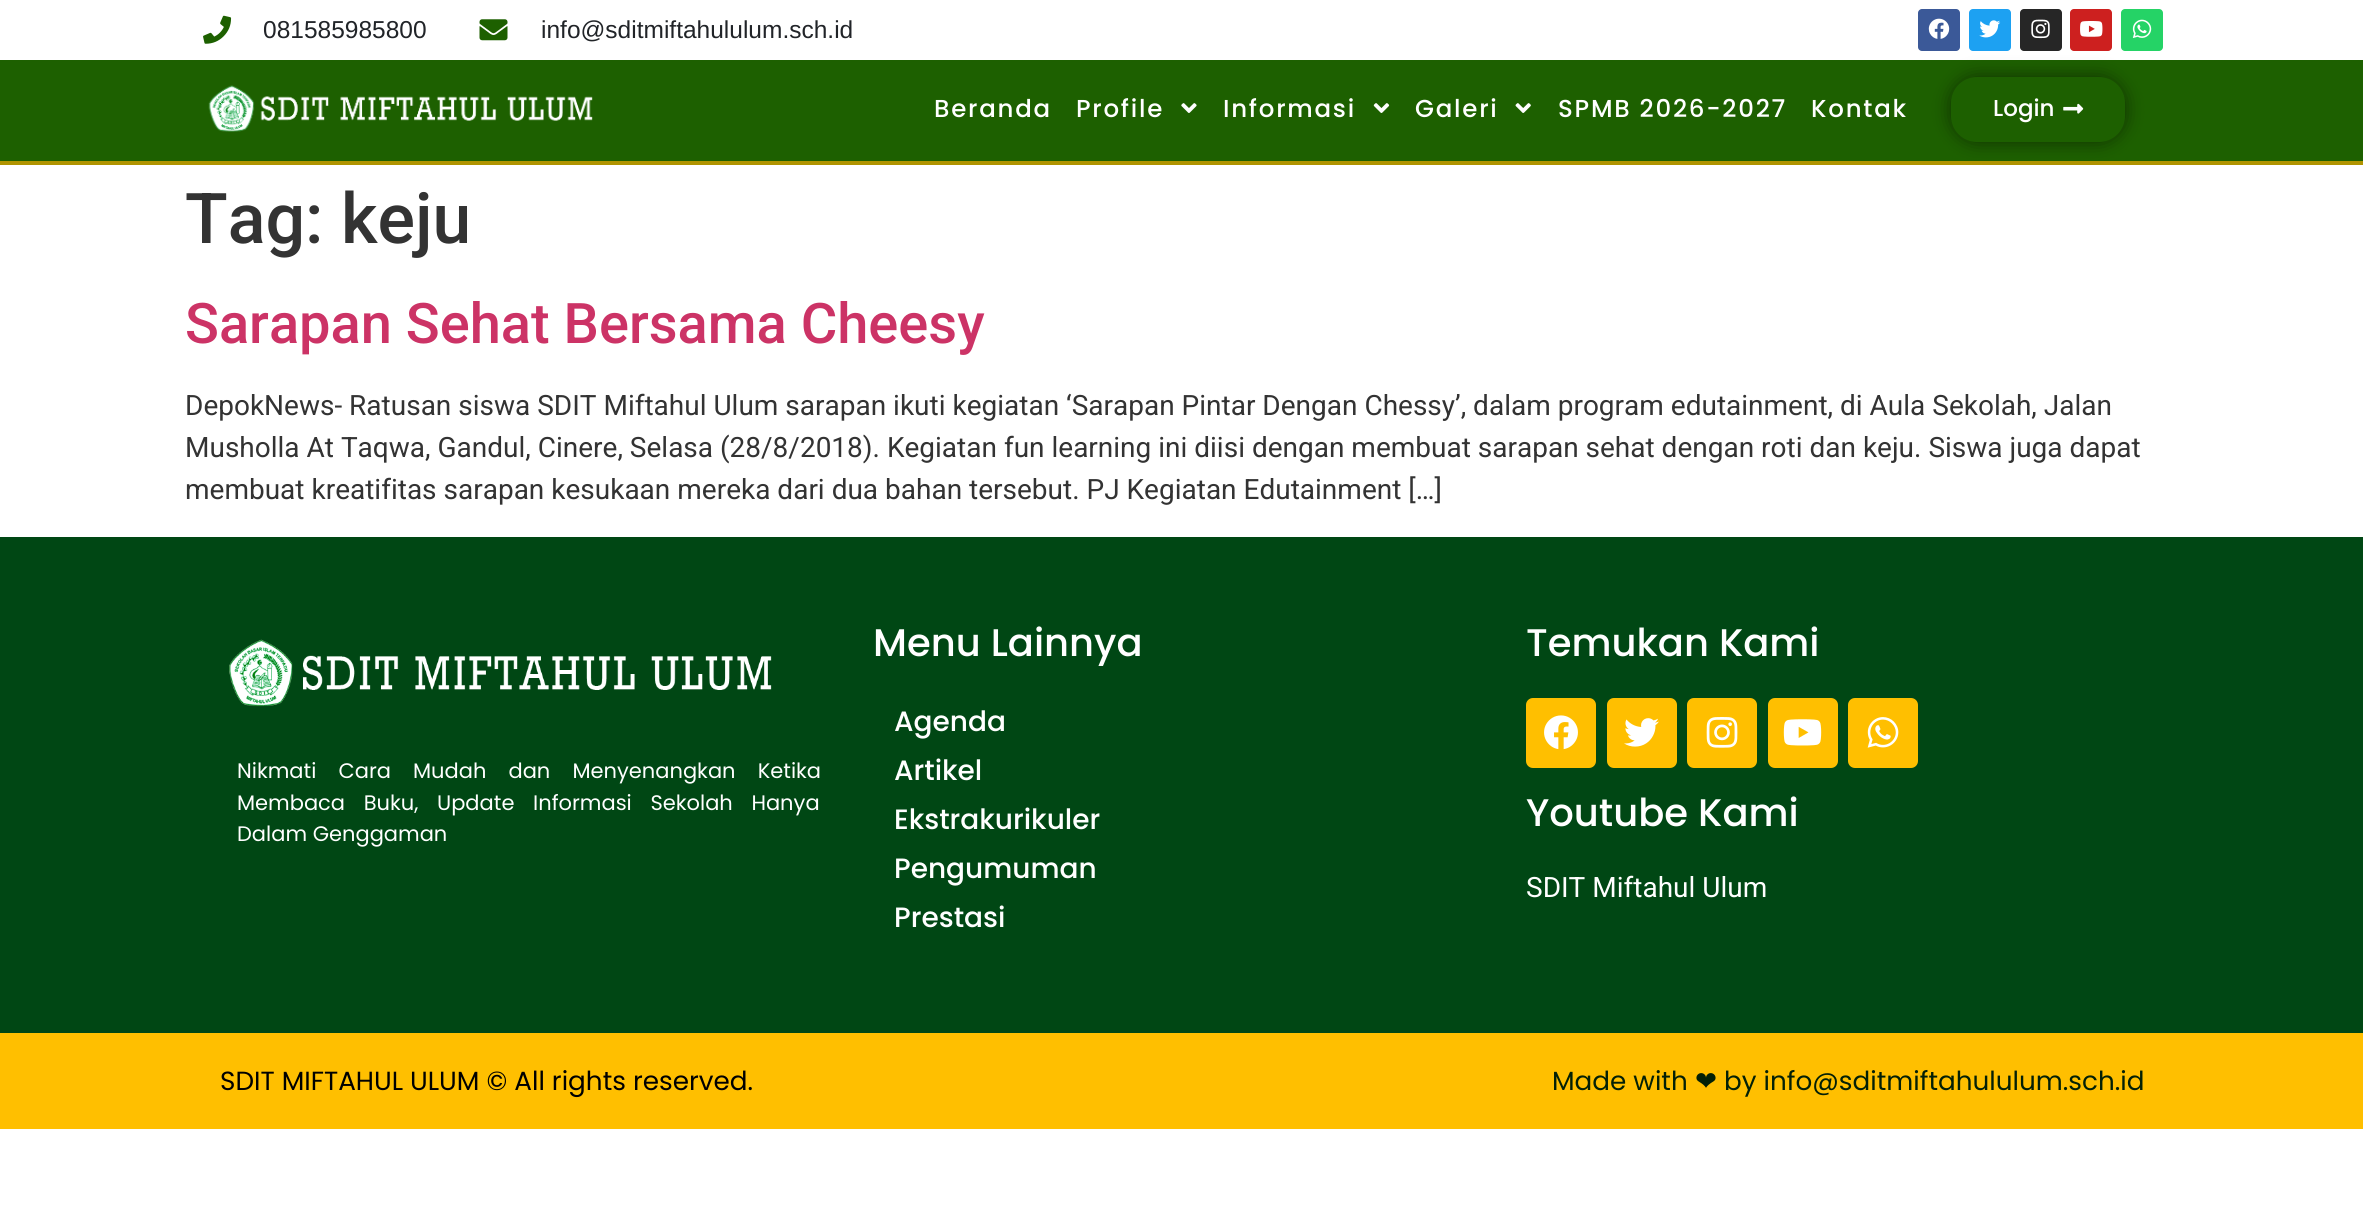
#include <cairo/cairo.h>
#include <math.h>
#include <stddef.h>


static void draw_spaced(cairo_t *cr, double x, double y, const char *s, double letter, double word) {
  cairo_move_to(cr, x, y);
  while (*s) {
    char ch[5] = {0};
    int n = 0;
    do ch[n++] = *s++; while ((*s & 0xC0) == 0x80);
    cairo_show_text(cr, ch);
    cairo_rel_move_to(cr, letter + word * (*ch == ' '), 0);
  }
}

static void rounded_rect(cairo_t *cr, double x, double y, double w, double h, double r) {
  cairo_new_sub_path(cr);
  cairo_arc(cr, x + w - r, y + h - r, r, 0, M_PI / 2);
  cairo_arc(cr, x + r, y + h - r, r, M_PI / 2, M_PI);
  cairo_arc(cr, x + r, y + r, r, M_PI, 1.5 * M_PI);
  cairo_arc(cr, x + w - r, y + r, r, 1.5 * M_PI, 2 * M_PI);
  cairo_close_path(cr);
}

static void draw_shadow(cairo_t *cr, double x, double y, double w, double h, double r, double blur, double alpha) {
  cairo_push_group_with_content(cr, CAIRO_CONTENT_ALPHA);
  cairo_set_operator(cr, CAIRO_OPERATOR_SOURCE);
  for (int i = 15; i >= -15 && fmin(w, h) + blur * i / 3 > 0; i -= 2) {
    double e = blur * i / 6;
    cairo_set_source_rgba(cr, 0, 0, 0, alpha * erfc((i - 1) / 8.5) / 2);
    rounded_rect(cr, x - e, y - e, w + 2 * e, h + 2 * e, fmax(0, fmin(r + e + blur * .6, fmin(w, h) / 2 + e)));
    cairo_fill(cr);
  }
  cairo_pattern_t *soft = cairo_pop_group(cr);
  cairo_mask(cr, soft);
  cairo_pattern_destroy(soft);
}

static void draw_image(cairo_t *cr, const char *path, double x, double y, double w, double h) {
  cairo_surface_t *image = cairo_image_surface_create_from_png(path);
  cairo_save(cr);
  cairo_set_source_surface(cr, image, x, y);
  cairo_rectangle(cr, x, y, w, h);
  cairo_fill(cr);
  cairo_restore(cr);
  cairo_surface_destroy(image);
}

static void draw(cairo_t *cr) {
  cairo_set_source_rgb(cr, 1, 1, 1);
  cairo_paint(cr);
  draw_image(cr, "images/1.png", 203, 15, 29, 29);
  draw_image(cr, "images/2.png", 479, 19, 29, 22);
  cairo_set_source_rgb(cr, 59 / 255.0, 89 / 255.0, 152 / 255.0);
  rounded_rect(cr, 1918, 9, 42, 42, 4);
  cairo_fill(cr);
  draw_image(cr, "images/3.png", 1928, 18, 22, 21);
  cairo_set_source_rgb(cr, 29 / 255.0, 161 / 255.0, 242 / 255.0);
  rounded_rect(cr, 1969, 9, 42, 42, 4);
  cairo_fill(cr);
  draw_image(cr, "images/4.png", 1979, 20, 22, 18);
  cairo_set_source_rgb(cr, 38 / 255.0, 38 / 255.0, 38 / 255.0);
  rounded_rect(cr, 2020, 9, 42, 42, 4);
  cairo_fill(cr);
  draw_image(cr, "images/5.png", 2031, 19, 19, 20);
  cairo_set_source_rgb(cr, 205 / 255.0, 32 / 255.0, 31 / 255.0);
  rounded_rect(cr, 2070, 9, 42, 42, 4);
  cairo_fill(cr);
  draw_image(cr, "images/6.png", 2080, 21, 23, 16);
  cairo_set_source_rgb(cr, 37 / 255.0, 211 / 255.0, 102 / 255.0);
  rounded_rect(cr, 2121, 9, 42, 42, 4);
  cairo_fill(cr);
  draw_image(cr, "images/7.png", 2132, 19, 20, 19);
  cairo_set_source_rgb(cr, 29 / 255.0, 96 / 255.0, 0);
  cairo_rectangle(cr, 0, 60, 2363, 101);
  cairo_fill(cr);
  cairo_set_source_rgb(cr, 176 / 255.0, 148 / 255.0, 0);
  cairo_rectangle(cr, 0, 161, 2363, 4);
  cairo_fill(cr);
  draw_image(cr, "images/8.png", 208, 85, 385, 47);
  draw_image(cr, "images/9.png", 1181, 103, 16, 10);
  draw_image(cr, "images/10.png", 1373, 103, 17, 10);
  draw_image(cr, "images/11.png", 1515, 103, 16, 10);
  cairo_set_source_rgb(cr, 0, 0, 0);
  draw_shadow(cr, 1951, 77, 174, 65, 26, 9, 0.5);
  cairo_set_source_rgb(cr, 29 / 255.0, 96 / 255.0, 0);
  rounded_rect(cr, 1951, 77, 174, 65, 26);
  cairo_fill(cr);
  draw_image(cr, "images/12.png", 2063, 103, 21, 11);
  cairo_set_source_rgb(cr, 0, 71 / 255.0, 20 / 255.0);
  cairo_rectangle(cr, 0, 537, 2363, 496);
  cairo_fill(cr);
  draw_image(cr, "images/13.png", 229, 639, 543, 68);
  cairo_set_source_rgb(cr, 1, 191 / 255.0, 0);
  rounded_rect(cr, 1526, 698, 70, 70, 7);
  cairo_fill(cr);
  draw_image(cr, "images/14.png", 1544, 715, 34, 35);
  rounded_rect(cr, 1607, 698, 70, 70, 7);
  cairo_fill(cr);
  draw_image(cr, "images/15.png", 1624, 718, 35, 29);
  rounded_rect(cr, 1687, 698, 70, 70, 7);
  cairo_fill(cr);
  draw_image(cr, "images/16.png", 1706, 717, 32, 31);
  rounded_rect(cr, 1768, 698, 70, 70, 7);
  cairo_fill(cr);
  draw_image(cr, "images/17.png", 1783, 719, 39, 27);
  rounded_rect(cr, 1848, 698, 70, 70, 7);
  cairo_fill(cr);
  draw_image(cr, "images/18.png", 1867, 717, 32, 31);
  cairo_rectangle(cr, 0, 1033, 2363, 96);
  cairo_fill(cr);
  cairo_select_font_face(cr, "Liberation Sans", CAIRO_FONT_SLANT_NORMAL, CAIRO_FONT_WEIGHT_NORMAL);
  cairo_set_font_size(cr, 24.5);
  cairo_set_source_rgb(cr, 33 / 255.0, 36 / 255.0, 40 / 255.0);
  cairo_move_to(cr, 263, 38);
  cairo_show_text(cr, "081585985800");
  cairo_move_to(cr, 541, 38);
  cairo_show_text(cr, "info@sditmiftahululum.sch.id");
  cairo_select_font_face(cr, "Poppins Medium", CAIRO_FONT_SLANT_NORMAL, CAIRO_FONT_WEIGHT_NORMAL);
  cairo_set_source_rgb(cr, 1, 1, 1);
  draw_spaced(cr, 934, 117, "Beranda", 1.75, 0);
  draw_spaced(cr, 1076, 117, "Profile", 1.75, 0);
  draw_spaced(cr, 1223, 117, "Informasi", 1.75, 0);
  draw_spaced(cr, 1415, 117, "Galeri", 1.75, 0);
  draw_spaced(cr, 1558, 117, "SPMB 2026-2027", 1.75, 0);
  draw_spaced(cr, 1811, 117, "Kontak", 1.75, 0);
  cairo_set_font_size(cr, 23);
  cairo_move_to(cr, 1993, 116);
  cairo_show_text(cr, "Login");
  cairo_select_font_face(cr, "Roboto Medium", CAIRO_FONT_SLANT_NORMAL, CAIRO_FONT_WEIGHT_NORMAL);
  cairo_set_font_size(cr, 70);
  cairo_set_source_rgb(cr, 51 / 255.0, 51 / 255.0, 51 / 255.0);
  cairo_move_to(cr, 185, 243);
  cairo_show_text(cr, "Tag: keju");
  cairo_set_font_size(cr, 56);
  cairo_set_source_rgb(cr, 204 / 255.0, 51 / 255.0, 102 / 255.0);
  cairo_move_to(cr, 185, 343);
  cairo_show_text(cr, "Sarapan Sehat Bersama Cheesy");
  cairo_select_font_face(cr, "Roboto", CAIRO_FONT_SLANT_NORMAL, CAIRO_FONT_WEIGHT_NORMAL);
  cairo_set_font_size(cr, 28);
  cairo_set_source_rgb(cr, 51 / 255.0, 51 / 255.0, 51 / 255.0);
  cairo_move_to(cr, 185, 415);
  cairo_show_text(cr, "DepokNews- Ratusan siswa SDIT Miftahul Ulum sarapan ikuti kegiatan ‘Sarapan Pintar Dengan Chessy’, dalam program edutainment, di Aula Sekolah, Jalan");
  cairo_move_to(cr, 185, 457);
  cairo_show_text(cr, "Musholla At Taqwa, Gandul, Cinere, Selasa (28/8/2018). Kegiatan fun learning ini diisi dengan membuat sarapan sehat dengan roti dan keju. Siswa juga dapat");
  cairo_move_to(cr, 185, 499);
  cairo_show_text(cr, "membuat kreatifitas sarapan kesukaan mereka dari dua bahan tersebut. PJ Kegiatan Edutainment […]");
  cairo_select_font_face(cr, "Poppins", CAIRO_FONT_SLANT_NORMAL, CAIRO_FONT_WEIGHT_NORMAL);
  cairo_set_font_size(cr, 21);
  cairo_set_source_rgb(cr, 1, 1, 1);
  draw_spaced(cr, 237, 778, "Nikmati Cara Mudah dan Menyenangkan Ketika", 0, 16.5);
  draw_spaced(cr, 237, 810, "Membaca Buku, Update Informasi Sekolah Hanya", 0, 13);
  cairo_move_to(cr, 237, 841);
  cairo_show_text(cr, "Dalam Genggaman");
  cairo_select_font_face(cr, "Poppins Medium", CAIRO_FONT_SLANT_NORMAL, CAIRO_FONT_WEIGHT_NORMAL);
  cairo_set_font_size(cr, 38.5);
  cairo_move_to(cr, 873, 656);
  cairo_show_text(cr, "Menu Lainnya");
  cairo_set_font_size(cr, 28);
  cairo_move_to(cr, 894, 731);
  cairo_show_text(cr, "Agenda");
  cairo_move_to(cr, 894, 780);
  cairo_show_text(cr, "Artikel");
  cairo_move_to(cr, 894, 829);
  cairo_show_text(cr, "Ekstrakurikuler");
  cairo_move_to(cr, 894, 878);
  cairo_show_text(cr, "Pengumuman");
  cairo_move_to(cr, 894, 927);
  cairo_show_text(cr, "Prestasi");
  cairo_set_font_size(cr, 38.5);
  cairo_move_to(cr, 1526, 656);
  cairo_show_text(cr, "Temukan Kami");
  cairo_move_to(cr, 1526, 826);
  cairo_show_text(cr, "Youtube Kami");
  cairo_select_font_face(cr, "Roboto", CAIRO_FONT_SLANT_NORMAL, CAIRO_FONT_WEIGHT_NORMAL);
  cairo_set_font_size(cr, 28);
  cairo_move_to(cr, 1526, 897);
  cairo_show_text(cr, "SDIT Miftahul Ulum");
  cairo_select_font_face(cr, "Poppins", CAIRO_FONT_SLANT_NORMAL, CAIRO_FONT_WEIGHT_NORMAL);
  cairo_set_font_size(cr, 26.25);
  cairo_set_source_rgb(cr, 0, 0, 0);
  cairo_move_to(cr, 220, 1090);
  cairo_show_text(cr, "SDIT MIFTAHUL ULUM © All rights reserved.");
  cairo_set_source_rgb(cr, 3 / 255.0, 32 / 255.0, 6 / 255.0);
  cairo_move_to(cr, 1552, 1090);
  cairo_show_text(cr, "Made with");
  cairo_select_font_face(cr, "DejaVu Sans", CAIRO_FONT_SLANT_NORMAL, CAIRO_FONT_WEIGHT_NORMAL);
  cairo_move_to(cr, 1695, 1090);
  cairo_show_text(cr, "❤");
  cairo_select_font_face(cr, "Poppins", CAIRO_FONT_SLANT_NORMAL, CAIRO_FONT_WEIGHT_NORMAL);
  cairo_move_to(cr, 1724, 1090);
  cairo_show_text(cr, "by info@sditmiftahululum.sch.id");
}

int main(void) {
  cairo_surface_t *surface = cairo_image_surface_create(CAIRO_FORMAT_RGB24, 2363, 1209);
  cairo_t *cr = cairo_create(surface);
  cairo_font_options_t *options = cairo_font_options_create();
  cairo_font_options_set_hint_metrics(options, CAIRO_HINT_METRICS_OFF);
  cairo_font_options_set_hint_style(options, CAIRO_HINT_STYLE_NONE);
  cairo_set_font_options(cr, options);
  cairo_set_miter_limit(cr, 4);
  draw(cr);
  cairo_surface_write_to_png(surface, "out.png");
  cairo_font_options_destroy(options);
  cairo_destroy(cr);
  cairo_surface_destroy(surface);
  return 0;
}
